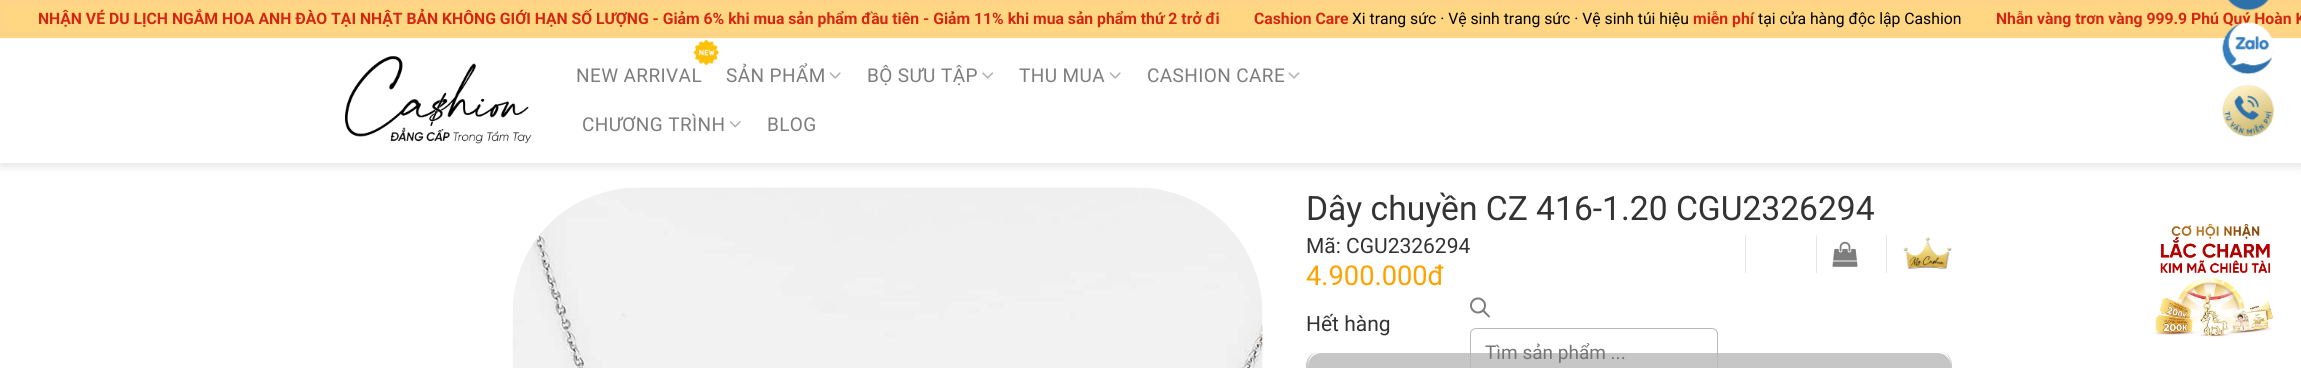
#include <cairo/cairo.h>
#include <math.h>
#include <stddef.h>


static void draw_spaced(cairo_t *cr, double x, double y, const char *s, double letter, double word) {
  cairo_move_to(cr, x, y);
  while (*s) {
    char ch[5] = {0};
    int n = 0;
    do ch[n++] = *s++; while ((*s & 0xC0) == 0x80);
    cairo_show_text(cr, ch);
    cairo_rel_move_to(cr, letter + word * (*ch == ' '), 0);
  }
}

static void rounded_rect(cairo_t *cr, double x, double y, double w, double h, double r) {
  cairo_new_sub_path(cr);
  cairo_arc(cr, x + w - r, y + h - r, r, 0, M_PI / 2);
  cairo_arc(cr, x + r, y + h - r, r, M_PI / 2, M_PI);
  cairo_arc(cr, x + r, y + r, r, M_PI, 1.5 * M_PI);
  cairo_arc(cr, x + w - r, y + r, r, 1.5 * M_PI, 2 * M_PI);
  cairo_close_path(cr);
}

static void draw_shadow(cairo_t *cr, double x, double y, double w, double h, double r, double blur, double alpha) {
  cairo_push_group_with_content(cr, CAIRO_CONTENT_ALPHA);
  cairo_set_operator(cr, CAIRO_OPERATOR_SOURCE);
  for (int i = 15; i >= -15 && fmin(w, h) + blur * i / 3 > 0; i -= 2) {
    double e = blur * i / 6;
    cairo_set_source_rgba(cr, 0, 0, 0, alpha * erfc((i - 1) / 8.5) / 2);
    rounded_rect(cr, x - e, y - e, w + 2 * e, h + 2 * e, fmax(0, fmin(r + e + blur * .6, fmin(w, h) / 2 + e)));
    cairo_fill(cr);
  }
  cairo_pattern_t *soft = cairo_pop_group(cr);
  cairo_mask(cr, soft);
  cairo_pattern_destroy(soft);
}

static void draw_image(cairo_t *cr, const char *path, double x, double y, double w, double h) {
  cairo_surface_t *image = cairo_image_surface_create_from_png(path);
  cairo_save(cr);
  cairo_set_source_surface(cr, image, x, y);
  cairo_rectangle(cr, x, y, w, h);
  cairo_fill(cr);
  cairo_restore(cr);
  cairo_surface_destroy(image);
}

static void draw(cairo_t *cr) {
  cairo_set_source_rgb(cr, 1, 1, 1);
  cairo_paint(cr);
  cairo_save(cr);
  cairo_set_fill_rule(cr, CAIRO_FILL_RULE_EVEN_ODD);
  cairo_new_path(cr);
  cairo_move_to(cr, 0, 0);
  cairo_line_to(cr, 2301, 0);
  cairo_line_to(cr, 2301, 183);
  cairo_line_to(cr, 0, 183);
  cairo_close_path(cr);
  cairo_move_to(cr, 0, 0);
  cairo_line_to(cr, 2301, 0);
  cairo_line_to(cr, 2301, 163);
  cairo_line_to(cr, 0, 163);
  cairo_close_path(cr);
  cairo_clip(cr);
  cairo_set_source_rgb(cr, 0, 0, 0);
  draw_shadow(cr, 1, 1, 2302, 163, 0, 6, 0.15);
  cairo_restore(cr);
  cairo_set_source_rgb(cr, 1, 212 / 255.0, 135 / 255.0);
  cairo_rectangle(cr, 0, 0, 2301, 38);
  cairo_fill(cr);
  cairo_set_source_rgb(cr, 1, 215 / 255.0, 130 / 255.0);
  cairo_rectangle(cr, 6, 6, 2295, 25);
  cairo_fill(cr);
  draw_image(cr, "images/1.png", 2227, 0, 42, 11);
  draw_image(cr, "images/3.png", 2222, 84, 52, 53);
  draw_image(cr, "images/4.png", 345, 56, 187, 88);
  draw_image(cr, "images/5.png", 693, 40, 26, 25);
  draw_image(cr, "images/6.png", 829, 72, 12, 7);
  draw_image(cr, "images/7.png", 982, 72, 12, 7);
  draw_image(cr, "images/6.png", 1109, 72, 12, 7);
  draw_image(cr, "images/8.png", 1288, 72, 12, 7);
  draw_image(cr, "images/9.png", 729, 121, 12, 7);
  cairo_set_source_rgb(cr, 230 / 255.0, 230 / 255.0, 230 / 255.0);
  cairo_rectangle(cr, 1745, 235, 1, 38);
  cairo_fill(cr);
  cairo_rectangle(cr, 1816, 235, 1, 38);
  cairo_fill(cr);
  draw_image(cr, "images/10.png", 1832, 241, 26, 26);
  cairo_rectangle(cr, 1886, 235, 1, 38);
  cairo_fill(cr);
  draw_image(cr, "images/11.png", 1903, 237, 49, 32);
  draw_image(cr, "images/12.png", 1470, 297, 20, 21);
  cairo_set_source_rgb(cr, 204 / 255.0, 204 / 255.0, 204 / 255.0);
  cairo_set_fill_rule(cr, CAIRO_FILL_RULE_EVEN_ODD);
  cairo_new_path(cr);
  cairo_move_to(cr, 1319, 352);
  cairo_line_to(cr, 1940, 352);
  cairo_curve_to(cr, 1947, 352, 1952, 358, 1952, 365);
  cairo_line_to(cr, 1952, 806);
  cairo_curve_to(cr, 1952, 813, 1947, 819, 1940, 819);
  cairo_line_to(cr, 1319, 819);
  cairo_curve_to(cr, 1312, 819, 1306, 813, 1306, 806);
  cairo_line_to(cr, 1306, 365);
  cairo_curve_to(cr, 1306, 358, 1312, 352, 1319, 352);
  cairo_close_path(cr);
  cairo_move_to(cr, 1319, 352);
  cairo_line_to(cr, 1940, 352);
  cairo_curve_to(cr, 1946, 352, 1951, 358, 1951, 365);
  cairo_line_to(cr, 1951, 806);
  cairo_curve_to(cr, 1951, 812, 1946, 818, 1940, 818);
  cairo_line_to(cr, 1319, 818);
  cairo_curve_to(cr, 1313, 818, 1308, 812, 1308, 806);
  cairo_line_to(cr, 1308, 365);
  cairo_curve_to(cr, 1308, 358, 1313, 352, 1319, 352);
  cairo_close_path(cr);
  cairo_fill(cr);
  cairo_set_source_rgb(cr, 198 / 255.0, 198 / 255.0, 198 / 255.0);
  cairo_new_path(cr);
  cairo_move_to(cr, 1321, 353);
  cairo_line_to(cr, 1938, 353);
  cairo_curve_to(cr, 1945, 353, 1951, 359, 1951, 366);
  cairo_line_to(cr, 1951, 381);
  cairo_line_to(cr, 1308, 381);
  cairo_line_to(cr, 1308, 366);
  cairo_curve_to(cr, 1308, 359, 1314, 353, 1321, 353);
  cairo_close_path(cr);
  cairo_fill(cr);
  rounded_rect(cr, 1470.5, 328.5, 247, 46, 5.5);
  cairo_set_source_rgb(cr, 185 / 255.0, 185 / 255.0, 185 / 255.0);
  cairo_set_line_width(cr, 1);
  cairo_stroke(cr);
  cairo_set_source_rgba(cr, 1, 1, 1, 0.9);
  cairo_rectangle(cr, 0, 162, 2301, 1);
  cairo_fill(cr);
  draw_image(cr, "images/13.png", 512, 187, 751, 181);
  draw_image(cr, "images/14.png", 1262, 327, 1, 33);
  draw_image(cr, "images/15.png", 2152, 223, 122, 116);
  cairo_select_font_face(cr, "Roboto", CAIRO_FONT_SLANT_NORMAL, CAIRO_FONT_WEIGHT_BOLD);
  cairo_set_font_size(cr, 15.75);
  cairo_set_source_rgb(cr, 212 / 255.0, 38 / 255.0, 17 / 255.0);
  cairo_move_to(cr, 38, 24);
  cairo_show_text(cr, "NHẬN VÉ DU LỊCH NGẮM HOA ANH ĐÀO TẠI NHẬT BẢN KHÔNG GIỚI HẠN SỐ LƯỢNG - Giảm 6% khi mua sản phẩm đầu tiên - Giảm 11% khi mua sản phẩm thứ 2 trở đi");
  cairo_move_to(cr, 1254, 24);
  cairo_show_text(cr, "Cashion Care");
  cairo_select_font_face(cr, "Roboto", CAIRO_FONT_SLANT_NORMAL, CAIRO_FONT_WEIGHT_NORMAL);
  cairo_set_source_rgb(cr, 0, 0, 0);
  cairo_move_to(cr, 1352, 24);
  cairo_show_text(cr, "Xi trang sức · Vệ sinh trang sức · Vệ sinh túi hiệu");
  cairo_select_font_face(cr, "Roboto", CAIRO_FONT_SLANT_NORMAL, CAIRO_FONT_WEIGHT_BOLD);
  cairo_set_source_rgb(cr, 212 / 255.0, 38 / 255.0, 17 / 255.0);
  cairo_move_to(cr, 1693, 24);
  cairo_show_text(cr, "miễn phí");
  cairo_select_font_face(cr, "Roboto", CAIRO_FONT_SLANT_NORMAL, CAIRO_FONT_WEIGHT_NORMAL);
  cairo_set_source_rgb(cr, 0, 0, 0);
  cairo_move_to(cr, 1758, 24);
  cairo_show_text(cr, "tại cửa hàng độc lập Cashion");
  cairo_select_font_face(cr, "Roboto", CAIRO_FONT_SLANT_NORMAL, CAIRO_FONT_WEIGHT_BOLD);
  cairo_set_source_rgb(cr, 212 / 255.0, 38 / 255.0, 17 / 255.0);
  cairo_move_to(cr, 1996, 24);
  cairo_show_text(cr, "Nhẫn vàng trơn vàng 999.9 Phú Quý Hoàn K");
  draw_image(cr, "images/2.png", 2222, 22, 52, 53);
  cairo_select_font_face(cr, "Roboto", CAIRO_FONT_SLANT_NORMAL, CAIRO_FONT_WEIGHT_NORMAL);
  cairo_set_font_size(cr, 19);
  cairo_set_source_rgb(cr, 125 / 255.0, 125 / 255.0, 125 / 255.0);
  draw_spaced(cr, 576, 82, "NEW ARRIVAL", 0.4, 0);
  draw_spaced(cr, 726, 82, "SẢN PHẨM", 0.4, 0);
  draw_spaced(cr, 867, 82, "BỘ SƯU TẬP", 0.4, 0);
  draw_spaced(cr, 1019, 82, "THU MUA", 0.4, 0);
  draw_spaced(cr, 1147, 82, "CASHION CARE", 0.4, 0);
  draw_spaced(cr, 582, 131, "CHƯƠNG TRÌNH", 0.4, 0);
  draw_spaced(cr, 767, 131, "BLOG", 0.4, 0);
  cairo_set_source_rgb(cr, 117 / 255.0, 117 / 255.0, 117 / 255.0);
  cairo_move_to(cr, 1485, 359);
  cairo_show_text(cr, "Tìm sản phẩm ...");
  cairo_set_font_size(cr, 33.6);
  cairo_set_source_rgb(cr, 51 / 255.0, 51 / 255.0, 51 / 255.0);
  cairo_move_to(cr, 1306, 220);
  cairo_show_text(cr, "Dây chuyền CZ 416-1.20 CGU2326294");
  cairo_set_font_size(cr, 21);
  cairo_move_to(cr, 1306, 253);
  cairo_show_text(cr, "Mã: CGU2326294");
  cairo_set_font_size(cr, 27.25);
  cairo_set_source_rgb(cr, 1, 162 / 255.0, 0);
  cairo_move_to(cr, 1306, 285);
  cairo_show_text(cr, "4.900.000đ");
  cairo_set_font_size(cr, 21);
  cairo_set_source_rgb(cr, 51 / 255.0, 51 / 255.0, 51 / 255.0);
  cairo_move_to(cr, 1306, 331);
  cairo_show_text(cr, "Hết hàng");
}

int main(void) {
  cairo_surface_t *surface = cairo_image_surface_create(CAIRO_FORMAT_RGB24, 2301, 368);
  cairo_t *cr = cairo_create(surface);
  cairo_font_options_t *options = cairo_font_options_create();
  cairo_font_options_set_hint_metrics(options, CAIRO_HINT_METRICS_OFF);
  cairo_font_options_set_hint_style(options, CAIRO_HINT_STYLE_NONE);
  cairo_set_font_options(cr, options);
  cairo_set_miter_limit(cr, 4);
  draw(cr);
  cairo_surface_write_to_png(surface, "out.png");
  cairo_font_options_destroy(options);
  cairo_destroy(cr);
  cairo_surface_destroy(surface);
  return 0;
}
